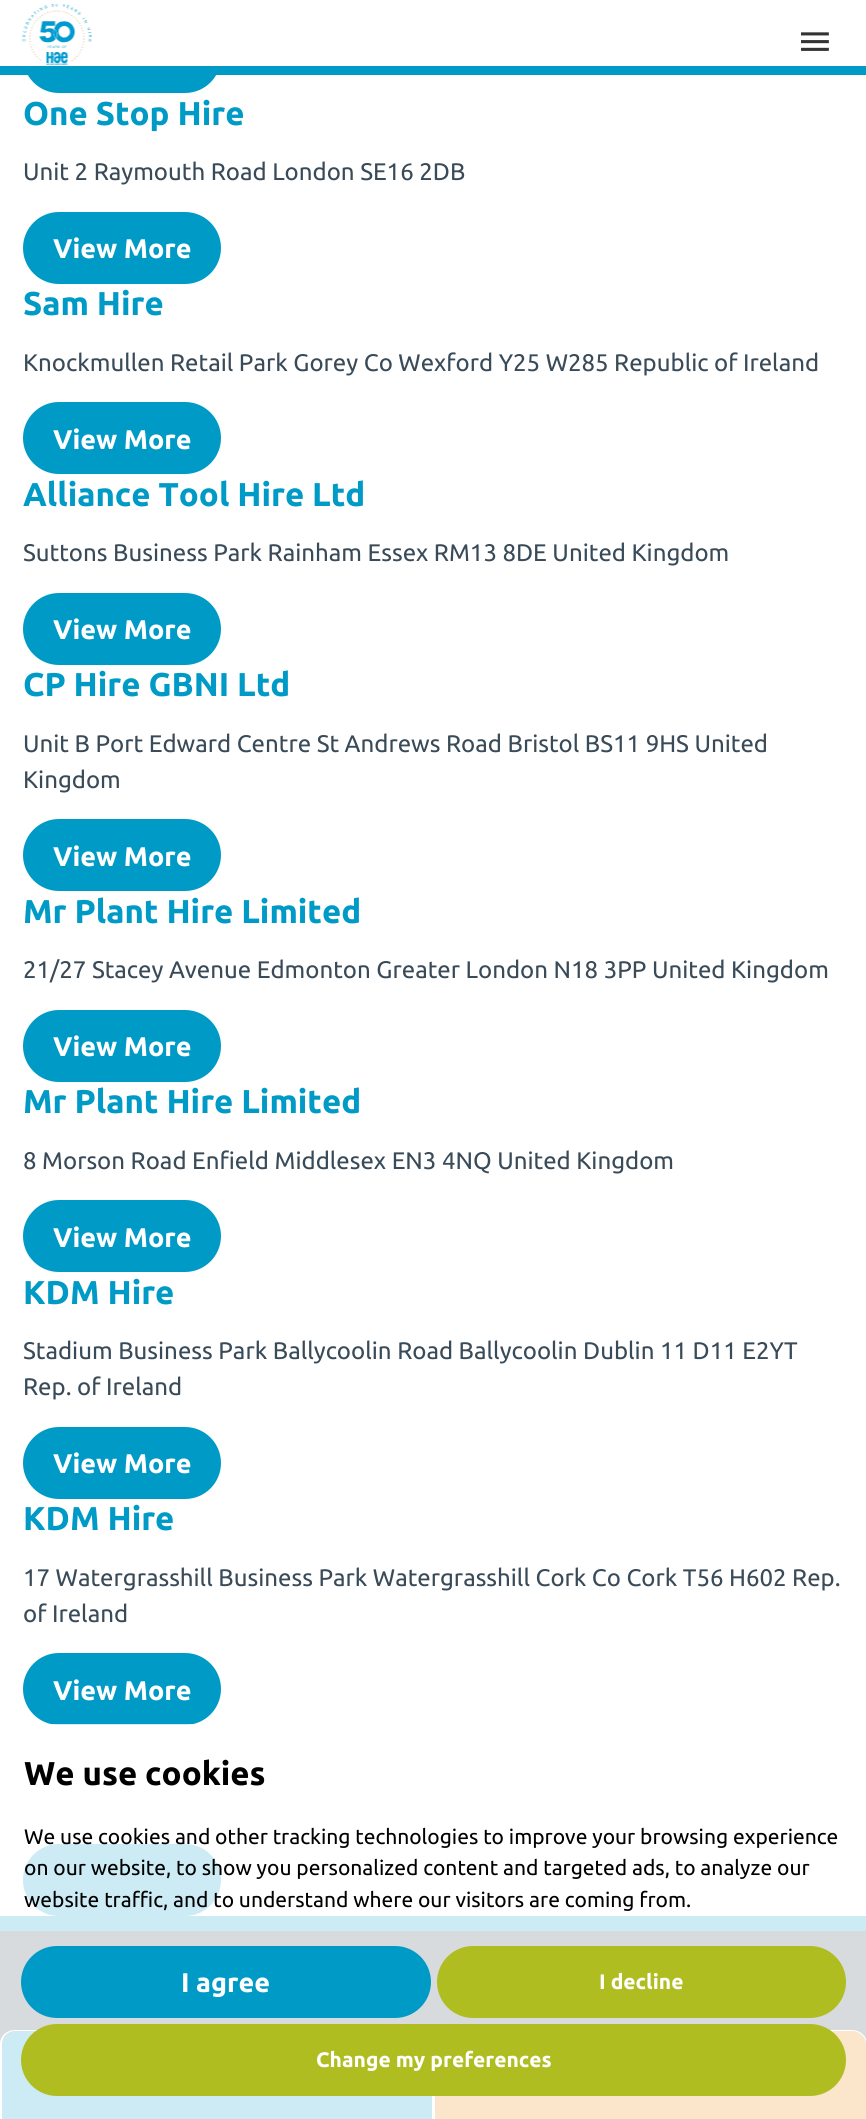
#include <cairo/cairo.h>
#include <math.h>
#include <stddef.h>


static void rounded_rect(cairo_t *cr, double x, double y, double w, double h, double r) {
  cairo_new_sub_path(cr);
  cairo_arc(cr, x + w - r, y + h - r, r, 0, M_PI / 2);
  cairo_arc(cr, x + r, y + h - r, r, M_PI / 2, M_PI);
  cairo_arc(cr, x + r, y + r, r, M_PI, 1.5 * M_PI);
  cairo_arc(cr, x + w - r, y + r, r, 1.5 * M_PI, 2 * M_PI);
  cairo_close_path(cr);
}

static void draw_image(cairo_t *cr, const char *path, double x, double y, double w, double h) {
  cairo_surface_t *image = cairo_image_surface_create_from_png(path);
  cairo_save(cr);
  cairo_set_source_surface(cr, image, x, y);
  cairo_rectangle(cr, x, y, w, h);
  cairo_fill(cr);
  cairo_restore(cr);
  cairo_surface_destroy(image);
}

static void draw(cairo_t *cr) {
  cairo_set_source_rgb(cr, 1, 1, 1);
  cairo_paint(cr);
  cairo_set_source_rgb(cr, 0, 154 / 255.0, 199 / 255.0);
  rounded_rect(cr, 23, 21, 198, 72, 36);
  cairo_fill(cr);
  cairo_set_source_rgb(cr, 1, 1, 1);
  cairo_rectangle(cr, 23, 21, 198, 45);
  cairo_fill(cr);
  cairo_set_source_rgb(cr, 0, 154 / 255.0, 199 / 255.0);
  cairo_rectangle(cr, 0, 66, 866, 9);
  cairo_fill(cr);
  draw_image(cr, "images/1.png", 22, 4, 70, 61);
  draw_image(cr, "images/2.png", 801, 32, 28, 19);
  rounded_rect(cr, 23, 212, 198, 72, 36);
  cairo_fill(cr);
  rounded_rect(cr, 23, 402, 198, 72, 36);
  cairo_fill(cr);
  rounded_rect(cr, 23, 593, 198, 72, 36);
  cairo_fill(cr);
  rounded_rect(cr, 23, 819, 198, 72, 36);
  cairo_fill(cr);
  rounded_rect(cr, 23, 1010, 198, 72, 36);
  cairo_fill(cr);
  rounded_rect(cr, 23, 1200, 198, 72, 36);
  cairo_fill(cr);
  rounded_rect(cr, 23, 1427, 198, 72, 36);
  cairo_fill(cr);
  rounded_rect(cr, 23, 1653, 198, 72, 36);
  cairo_fill(cr);
  rounded_rect(cr, 23, 1844, 198, 72, 36);
  cairo_fill(cr);
  cairo_rectangle(cr, 0, 1916, 866, 15);
  cairo_fill(cr);
  cairo_set_source_rgb(cr, 57 / 255.0, 74 / 255.0, 88 / 255.0);
  cairo_rectangle(cr, 0, 1931, 866, 114);
  cairo_fill(cr);
  cairo_set_source_rgb(cr, 0, 154 / 255.0, 199 / 255.0);
  cairo_new_path(cr);
  cairo_move_to(cr, 16, 2031);
  cairo_line_to(cr, 418, 2031);
  cairo_curve_to(cr, 425.5, 2031, 432, 2037.5, 432, 2045);
  cairo_line_to(cr, 432, 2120);
  cairo_line_to(cr, 2, 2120);
  cairo_line_to(cr, 2, 2045);
  cairo_curve_to(cr, 2, 2037.5, 8.5, 2031, 16, 2031);
  cairo_close_path(cr);
  cairo_fill(cr);
  cairo_set_source_rgb(cr, 1, 1, 1);
  cairo_set_fill_rule(cr, CAIRO_FILL_RULE_EVEN_ODD);
  cairo_new_path(cr);
  cairo_move_to(cr, 15, 2030);
  cairo_line_to(cr, 418, 2030);
  cairo_curve_to(cr, 427, 2030, 434, 2036, 434, 2044);
  cairo_line_to(cr, 434, 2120);
  cairo_line_to(cr, 0, 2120);
  cairo_line_to(cr, 0, 2044);
  cairo_curve_to(cr, 0, 2036, 7, 2030, 15, 2030);
  cairo_close_path(cr);
  cairo_move_to(cr, 15, 2031);
  cairo_line_to(cr, 418, 2031);
  cairo_curve_to(cr, 426, 2031, 432, 2037, 432, 2044);
  cairo_line_to(cr, 432, 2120);
  cairo_line_to(cr, 2, 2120);
  cairo_line_to(cr, 2, 2044);
  cairo_curve_to(cr, 2, 2037, 8, 2031, 15, 2031);
  cairo_close_path(cr);
  cairo_fill(cr);
  cairo_set_source_rgb(cr, 233 / 255.0, 131 / 255.0, 0);
  cairo_new_path(cr);
  cairo_move_to(cr, 449, 2031);
  cairo_line_to(cr, 852, 2031);
  cairo_curve_to(cr, 859.5, 2031, 866, 2037.5, 866, 2045);
  cairo_line_to(cr, 866, 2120);
  cairo_line_to(cr, 435, 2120);
  cairo_line_to(cr, 435, 2045);
  cairo_curve_to(cr, 435, 2037.5, 441.5, 2031, 449, 2031);
  cairo_close_path(cr);
  cairo_fill(cr);
  cairo_set_source_rgb(cr, 1, 1, 1);
  cairo_new_path(cr);
  cairo_move_to(cr, 448, 2030);
  cairo_line_to(cr, 852, 2030);
  cairo_curve_to(cr, 860, 2030, 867, 2036, 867, 2044);
  cairo_line_to(cr, 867, 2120);
  cairo_line_to(cr, 434, 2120);
  cairo_line_to(cr, 434, 2044);
  cairo_curve_to(cr, 434, 2036, 440, 2030, 448, 2030);
  cairo_close_path(cr);
  cairo_move_to(cr, 448, 2031);
  cairo_line_to(cr, 852, 2031);
  cairo_curve_to(cr, 859, 2031, 866, 2037, 866, 2044);
  cairo_line_to(cr, 866, 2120);
  cairo_line_to(cr, 435, 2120);
  cairo_line_to(cr, 435, 2044);
  cairo_curve_to(cr, 435, 2037, 441, 2031, 448, 2031);
  cairo_close_path(cr);
  cairo_fill(cr);
  cairo_set_source_rgba(cr, 1, 1, 1, 0.8);
  cairo_rectangle(cr, 0, 1724, 866, 395);
  cairo_fill(cr);
  cairo_set_source_rgb(cr, 0, 154 / 255.0, 199 / 255.0);
  rounded_rect(cr, 21, 1946, 410, 72, 36);
  cairo_fill(cr);
  cairo_set_source_rgb(cr, 175 / 255.0, 189 / 255.0, 33 / 255.0);
  rounded_rect(cr, 437, 1946, 409, 72, 36);
  cairo_fill(cr);
  rounded_rect(cr, 21, 2024, 825, 72, 36);
  cairo_fill(cr);
  cairo_select_font_face(cr, "Ubuntu", CAIRO_FONT_SLANT_NORMAL, CAIRO_FONT_WEIGHT_BOLD);
  cairo_set_font_size(cr, 33);
  cairo_set_source_rgb(cr, 0, 154 / 255.0, 199 / 255.0);
  cairo_move_to(cr, 23, 125);
  cairo_show_text(cr, "One Stop Hire");
  cairo_select_font_face(cr, "Ubuntu", CAIRO_FONT_SLANT_NORMAL, CAIRO_FONT_WEIGHT_NORMAL);
  cairo_set_font_size(cr, 24);
  cairo_set_source_rgb(cr, 57 / 255.0, 74 / 255.0, 88 / 255.0);
  cairo_move_to(cr, 23, 180);
  cairo_show_text(cr, "Unit 2 Raymouth Road London SE16 2DB");
  cairo_select_font_face(cr, "Ubuntu", CAIRO_FONT_SLANT_NORMAL, CAIRO_FONT_WEIGHT_BOLD);
  cairo_set_font_size(cr, 27);
  cairo_set_source_rgb(cr, 1, 1, 1);
  cairo_move_to(cr, 53, 258);
  cairo_show_text(cr, "View More");
  cairo_set_font_size(cr, 33);
  cairo_set_source_rgb(cr, 0, 154 / 255.0, 199 / 255.0);
  cairo_move_to(cr, 23, 315);
  cairo_show_text(cr, "Sam Hire");
  cairo_select_font_face(cr, "Ubuntu", CAIRO_FONT_SLANT_NORMAL, CAIRO_FONT_WEIGHT_NORMAL);
  cairo_set_font_size(cr, 24);
  cairo_set_source_rgb(cr, 57 / 255.0, 74 / 255.0, 88 / 255.0);
  cairo_move_to(cr, 23, 371);
  cairo_show_text(cr, "Knockmullen Retail Park Gorey Co Wexford Y25 W285 Republic of Ireland");
  cairo_select_font_face(cr, "Ubuntu", CAIRO_FONT_SLANT_NORMAL, CAIRO_FONT_WEIGHT_BOLD);
  cairo_set_font_size(cr, 27);
  cairo_set_source_rgb(cr, 1, 1, 1);
  cairo_move_to(cr, 53, 449);
  cairo_show_text(cr, "View More");
  cairo_set_font_size(cr, 33);
  cairo_set_source_rgb(cr, 0, 154 / 255.0, 199 / 255.0);
  cairo_move_to(cr, 23, 506);
  cairo_show_text(cr, "Alliance Tool Hire Ltd");
  cairo_select_font_face(cr, "Ubuntu", CAIRO_FONT_SLANT_NORMAL, CAIRO_FONT_WEIGHT_NORMAL);
  cairo_set_font_size(cr, 24);
  cairo_set_source_rgb(cr, 57 / 255.0, 74 / 255.0, 88 / 255.0);
  cairo_move_to(cr, 23, 561);
  cairo_show_text(cr, "Suttons Business Park Rainham Essex RM13 8DE United Kingdom");
  cairo_select_font_face(cr, "Ubuntu", CAIRO_FONT_SLANT_NORMAL, CAIRO_FONT_WEIGHT_BOLD);
  cairo_set_font_size(cr, 27);
  cairo_set_source_rgb(cr, 1, 1, 1);
  cairo_move_to(cr, 53, 639);
  cairo_show_text(cr, "View More");
  cairo_set_font_size(cr, 33);
  cairo_set_source_rgb(cr, 0, 154 / 255.0, 199 / 255.0);
  cairo_move_to(cr, 23, 696);
  cairo_show_text(cr, "CP Hire GBNI Ltd");
  cairo_select_font_face(cr, "Ubuntu", CAIRO_FONT_SLANT_NORMAL, CAIRO_FONT_WEIGHT_NORMAL);
  cairo_set_font_size(cr, 24);
  cairo_set_source_rgb(cr, 57 / 255.0, 74 / 255.0, 88 / 255.0);
  cairo_move_to(cr, 23, 752);
  cairo_show_text(cr, "Unit B Port Edward Centre St Andrews Road Bristol BS11 9HS United");
  cairo_move_to(cr, 23, 788);
  cairo_show_text(cr, "Kingdom");
  cairo_select_font_face(cr, "Ubuntu", CAIRO_FONT_SLANT_NORMAL, CAIRO_FONT_WEIGHT_BOLD);
  cairo_set_font_size(cr, 27);
  cairo_set_source_rgb(cr, 1, 1, 1);
  cairo_move_to(cr, 53, 866);
  cairo_show_text(cr, "View More");
  cairo_set_font_size(cr, 33);
  cairo_set_source_rgb(cr, 0, 154 / 255.0, 199 / 255.0);
  cairo_move_to(cr, 23, 923);
  cairo_show_text(cr, "Mr Plant Hire Limited");
  cairo_select_font_face(cr, "Ubuntu", CAIRO_FONT_SLANT_NORMAL, CAIRO_FONT_WEIGHT_NORMAL);
  cairo_set_font_size(cr, 24);
  cairo_set_source_rgb(cr, 57 / 255.0, 74 / 255.0, 88 / 255.0);
  cairo_move_to(cr, 23, 978);
  cairo_show_text(cr, "21/27 Stacey Avenue Edmonton Greater London N18 3PP United Kingdom");
  cairo_select_font_face(cr, "Ubuntu", CAIRO_FONT_SLANT_NORMAL, CAIRO_FONT_WEIGHT_BOLD);
  cairo_set_font_size(cr, 27);
  cairo_set_source_rgb(cr, 1, 1, 1);
  cairo_move_to(cr, 53, 1056);
  cairo_show_text(cr, "View More");
  cairo_set_font_size(cr, 33);
  cairo_set_source_rgb(cr, 0, 154 / 255.0, 199 / 255.0);
  cairo_move_to(cr, 23, 1113);
  cairo_show_text(cr, "Mr Plant Hire Limited");
  cairo_select_font_face(cr, "Ubuntu", CAIRO_FONT_SLANT_NORMAL, CAIRO_FONT_WEIGHT_NORMAL);
  cairo_set_font_size(cr, 24);
  cairo_set_source_rgb(cr, 57 / 255.0, 74 / 255.0, 88 / 255.0);
  cairo_move_to(cr, 23, 1169);
  cairo_show_text(cr, "8 Morson Road Enfield Middlesex EN3 4NQ United Kingdom");
  cairo_select_font_face(cr, "Ubuntu", CAIRO_FONT_SLANT_NORMAL, CAIRO_FONT_WEIGHT_BOLD);
  cairo_set_font_size(cr, 27);
  cairo_set_source_rgb(cr, 1, 1, 1);
  cairo_move_to(cr, 53, 1247);
  cairo_show_text(cr, "View More");
  cairo_set_font_size(cr, 33);
  cairo_set_source_rgb(cr, 0, 154 / 255.0, 199 / 255.0);
  cairo_move_to(cr, 23, 1304);
  cairo_show_text(cr, "KDM Hire");
  cairo_select_font_face(cr, "Ubuntu", CAIRO_FONT_SLANT_NORMAL, CAIRO_FONT_WEIGHT_NORMAL);
  cairo_set_font_size(cr, 24);
  cairo_set_source_rgb(cr, 57 / 255.0, 74 / 255.0, 88 / 255.0);
  cairo_move_to(cr, 23, 1359);
  cairo_show_text(cr, "Stadium Business Park Ballycoolin Road Ballycoolin Dublin 11 D11 E2YT");
  cairo_move_to(cr, 23, 1395);
  cairo_show_text(cr, "Rep. of Ireland");
  cairo_select_font_face(cr, "Ubuntu", CAIRO_FONT_SLANT_NORMAL, CAIRO_FONT_WEIGHT_BOLD);
  cairo_set_font_size(cr, 27);
  cairo_set_source_rgb(cr, 1, 1, 1);
  cairo_move_to(cr, 53, 1473);
  cairo_show_text(cr, "View More");
  cairo_set_font_size(cr, 33);
  cairo_set_source_rgb(cr, 0, 154 / 255.0, 199 / 255.0);
  cairo_move_to(cr, 23, 1530);
  cairo_show_text(cr, "KDM Hire");
  cairo_select_font_face(cr, "Ubuntu", CAIRO_FONT_SLANT_NORMAL, CAIRO_FONT_WEIGHT_NORMAL);
  cairo_set_font_size(cr, 24);
  cairo_set_source_rgb(cr, 57 / 255.0, 74 / 255.0, 88 / 255.0);
  cairo_move_to(cr, 23, 1586);
  cairo_show_text(cr, "17 Watergrasshill Business Park Watergrasshill Cork Co Cork T56 H602 Rep.");
  cairo_move_to(cr, 23, 1622);
  cairo_show_text(cr, "of Ireland");
  cairo_select_font_face(cr, "Ubuntu", CAIRO_FONT_SLANT_NORMAL, CAIRO_FONT_WEIGHT_BOLD);
  cairo_set_font_size(cr, 27);
  cairo_set_source_rgb(cr, 1, 1, 1);
  cairo_move_to(cr, 53, 1700);
  cairo_show_text(cr, "View More");
  cairo_set_font_size(cr, 33);
  cairo_set_source_rgb(cr, 0, 0, 0);
  cairo_move_to(cr, 24, 1785);
  cairo_show_text(cr, "We use cookies");
  cairo_select_font_face(cr, "Ubuntu", CAIRO_FONT_SLANT_NORMAL, CAIRO_FONT_WEIGHT_NORMAL);
  cairo_set_font_size(cr, 21);
  cairo_move_to(cr, 24, 1844);
  cairo_show_text(cr, "We use cookies and other tracking technologies to improve your browsing experience");
  cairo_move_to(cr, 24, 1875);
  cairo_show_text(cr, "on our website, to show you personalized content and targeted ads, to analyze our");
  cairo_move_to(cr, 24, 1907);
  cairo_show_text(cr, "website traffic, and to understand where our visitors are coming from.");
  cairo_select_font_face(cr, "Ubuntu", CAIRO_FONT_SLANT_NORMAL, CAIRO_FONT_WEIGHT_BOLD);
  cairo_set_font_size(cr, 27);
  cairo_set_source_rgb(cr, 1, 1, 1);
  cairo_move_to(cr, 181, 1992);
  cairo_show_text(cr, "I agree");
  cairo_set_font_size(cr, 21);
  cairo_move_to(cr, 599, 1989);
  cairo_show_text(cr, "I decline");
  cairo_move_to(cr, 316, 2067);
  cairo_show_text(cr, "Change my preferences");
}

int main(void) {
  cairo_surface_t *surface = cairo_image_surface_create(CAIRO_FORMAT_RGB24, 866, 2119);
  cairo_t *cr = cairo_create(surface);
  cairo_font_options_t *options = cairo_font_options_create();
  cairo_font_options_set_hint_metrics(options, CAIRO_HINT_METRICS_OFF);
  cairo_font_options_set_hint_style(options, CAIRO_HINT_STYLE_NONE);
  cairo_set_font_options(cr, options);
  cairo_set_miter_limit(cr, 4);
  draw(cr);
  cairo_surface_write_to_png(surface, "out.png");
  cairo_font_options_destroy(options);
  cairo_destroy(cr);
  cairo_surface_destroy(surface);
  return 0;
}
